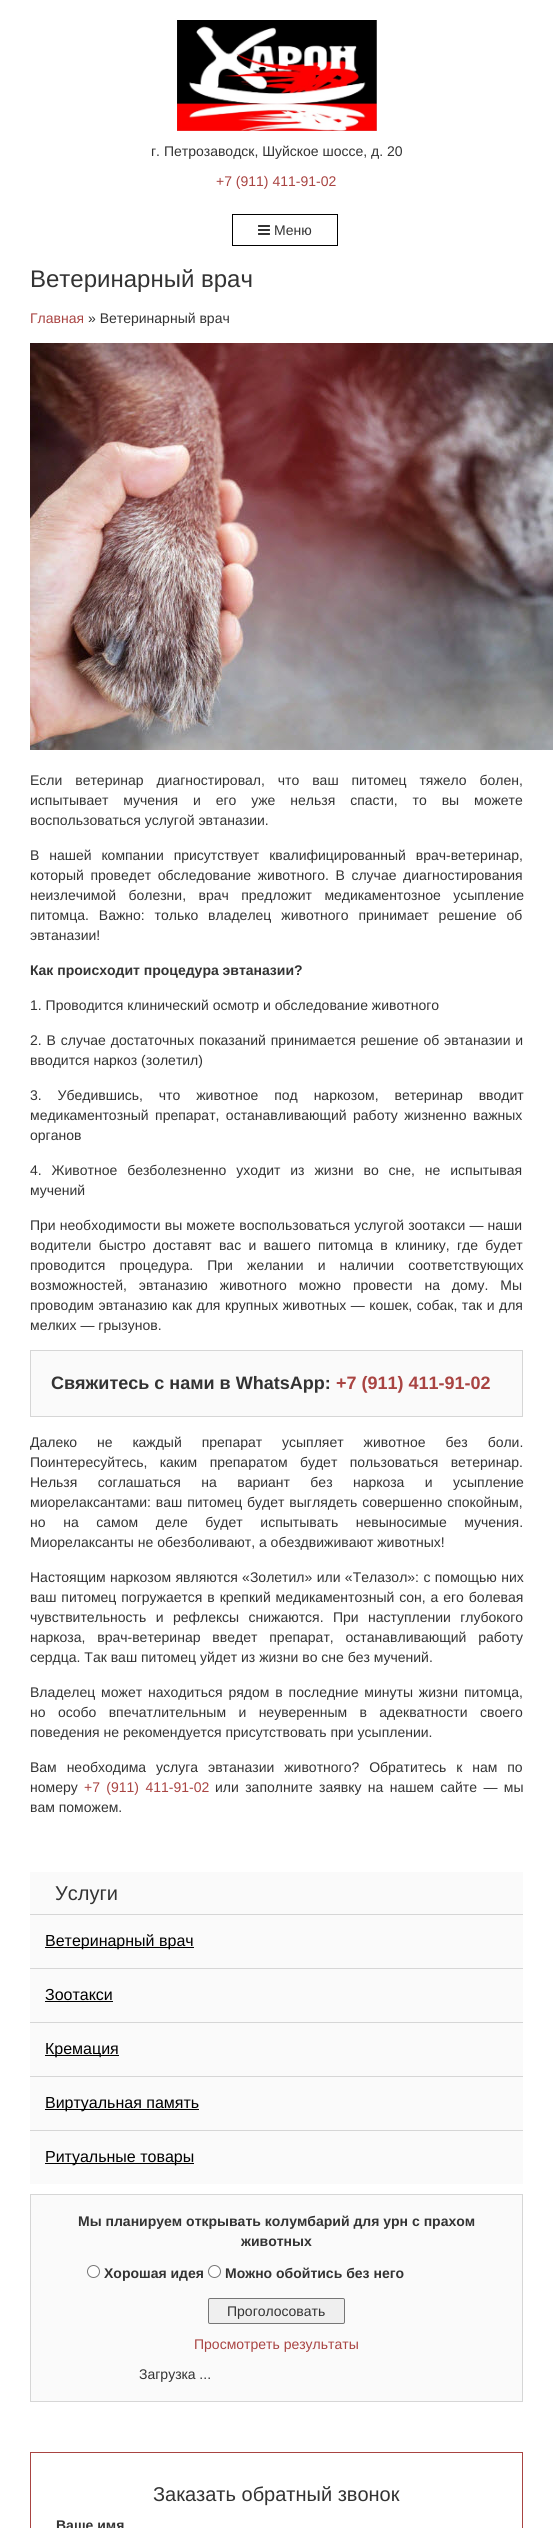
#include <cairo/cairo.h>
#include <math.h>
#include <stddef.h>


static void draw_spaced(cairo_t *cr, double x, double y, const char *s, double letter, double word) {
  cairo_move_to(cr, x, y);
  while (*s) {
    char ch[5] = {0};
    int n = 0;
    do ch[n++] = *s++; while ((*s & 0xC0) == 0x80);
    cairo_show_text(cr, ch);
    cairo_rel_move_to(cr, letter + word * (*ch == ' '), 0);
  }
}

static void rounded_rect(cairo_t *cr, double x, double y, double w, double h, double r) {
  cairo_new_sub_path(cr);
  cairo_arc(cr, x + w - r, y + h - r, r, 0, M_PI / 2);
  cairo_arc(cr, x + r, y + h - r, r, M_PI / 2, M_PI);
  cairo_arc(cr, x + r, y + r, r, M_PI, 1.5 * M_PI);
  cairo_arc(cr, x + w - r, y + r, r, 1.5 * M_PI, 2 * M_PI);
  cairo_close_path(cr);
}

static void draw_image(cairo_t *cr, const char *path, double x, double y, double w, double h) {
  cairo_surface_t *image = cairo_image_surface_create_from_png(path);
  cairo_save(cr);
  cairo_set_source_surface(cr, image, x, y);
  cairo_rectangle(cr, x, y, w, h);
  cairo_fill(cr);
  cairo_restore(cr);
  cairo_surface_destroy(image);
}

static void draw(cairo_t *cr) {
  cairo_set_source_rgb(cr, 1, 1, 1);
  cairo_paint(cr);
  draw_image(cr, "images/1.png", 177, 20, 200, 111);
  cairo_rectangle(cr, 232.5, 214.5, 105, 31);
  cairo_set_source_rgb(cr, 0, 0, 0);
  cairo_set_line_width(cr, 1);
  cairo_stroke(cr);
  draw_image(cr, "images/2.png", 258, 225, 12, 10);
  draw_image(cr, "images/3.png", 30, 343, 523, 407);
  cairo_set_source_rgb(cr, 250 / 255.0, 250 / 255.0, 250 / 255.0);
  cairo_rectangle(cr, 30.5, 1350.5, 492, 66);
  cairo_fill_preserve(cr);
  cairo_set_source_rgb(cr, 214 / 255.0, 214 / 255.0, 214 / 255.0);
  cairo_stroke(cr);
  cairo_set_source_rgb(cr, 250 / 255.0, 250 / 255.0, 250 / 255.0);
  cairo_rectangle(cr, 30, 1872, 493, 312);
  cairo_fill(cr);
  cairo_set_source_rgb(cr, 214 / 255.0, 214 / 255.0, 214 / 255.0);
  cairo_rectangle(cr, 30, 1914, 493, 1);
  cairo_fill(cr);
  cairo_set_source_rgb(cr, 0, 0, 0);
  cairo_rectangle(cr, 45, 1947, 149, 1);
  cairo_fill(cr);
  cairo_set_source_rgb(cr, 214 / 255.0, 214 / 255.0, 214 / 255.0);
  cairo_rectangle(cr, 30, 1968, 493, 1);
  cairo_fill(cr);
  cairo_set_source_rgb(cr, 0, 0, 0);
  cairo_rectangle(cr, 45, 2001, 68, 1);
  cairo_fill(cr);
  cairo_set_source_rgb(cr, 214 / 255.0, 214 / 255.0, 214 / 255.0);
  cairo_rectangle(cr, 30, 2022, 493, 1);
  cairo_fill(cr);
  cairo_set_source_rgb(cr, 0, 0, 0);
  cairo_rectangle(cr, 45, 2055, 74, 1);
  cairo_fill(cr);
  cairo_set_source_rgb(cr, 214 / 255.0, 214 / 255.0, 214 / 255.0);
  cairo_rectangle(cr, 30, 2076, 493, 1);
  cairo_fill(cr);
  cairo_set_source_rgb(cr, 0, 0, 0);
  cairo_rectangle(cr, 45, 2109, 154, 1);
  cairo_fill(cr);
  cairo_set_source_rgb(cr, 214 / 255.0, 214 / 255.0, 214 / 255.0);
  cairo_rectangle(cr, 30, 2130, 493, 1);
  cairo_fill(cr);
  cairo_set_source_rgb(cr, 0, 0, 0);
  cairo_rectangle(cr, 45, 2163, 149, 1);
  cairo_fill(cr);
  cairo_set_source_rgb(cr, 250 / 255.0, 250 / 255.0, 250 / 255.0);
  cairo_rectangle(cr, 30.5, 2194.5, 492, 207);
  cairo_fill_preserve(cr);
  cairo_set_source_rgb(cr, 214 / 255.0, 214 / 255.0, 214 / 255.0);
  cairo_stroke(cr);
  cairo_set_source_rgb(cr, 1, 1, 1);
  cairo_arc(cr, 93.5, 2271.5, 6, 0, 2 * M_PI);
  cairo_fill_preserve(cr);
  cairo_set_source_rgb(cr, 118 / 255.0, 118 / 255.0, 118 / 255.0);
  cairo_stroke(cr);
  cairo_set_source_rgb(cr, 1, 1, 1);
  cairo_arc(cr, 214.5, 2271.5, 6, 0, 2 * M_PI);
  cairo_fill_preserve(cr);
  cairo_set_source_rgb(cr, 118 / 255.0, 118 / 255.0, 118 / 255.0);
  cairo_stroke(cr);
  cairo_set_source_rgb(cr, 239 / 255.0, 239 / 255.0, 239 / 255.0);
  rounded_rect(cr, 208.5, 2298.5, 136, 25, 1.5);
  cairo_fill_preserve(cr);
  cairo_set_source_rgb(cr, 118 / 255.0, 118 / 255.0, 118 / 255.0);
  cairo_stroke(cr);
  cairo_rectangle(cr, 30.5, 2452.5, 492, 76);
  cairo_set_source_rgb(cr, 169 / 255.0, 68 / 255.0, 66 / 255.0);
  cairo_stroke(cr);
  cairo_select_font_face(cr, "Liberation Sans", CAIRO_FONT_SLANT_NORMAL, CAIRO_FONT_WEIGHT_NORMAL);
  cairo_set_font_size(cr, 14);
  cairo_set_source_rgb(cr, 51 / 255.0, 51 / 255.0, 51 / 255.0);
  cairo_move_to(cr, 151, 156);
  cairo_show_text(cr, "г. Петрозаводск, Шуйское шоссе, д. 20");
  cairo_set_source_rgb(cr, 169 / 255.0, 68 / 255.0, 66 / 255.0);
  cairo_move_to(cr, 216, 186);
  cairo_show_text(cr, "+7 (911) 411-91-02");
  cairo_set_source_rgb(cr, 51 / 255.0, 51 / 255.0, 51 / 255.0);
  cairo_move_to(cr, 274, 235);
  cairo_show_text(cr, "Меню");
  cairo_set_font_size(cr, 24);
  cairo_move_to(cr, 30, 287);
  cairo_show_text(cr, "Ветеринарный врач");
  cairo_set_font_size(cr, 14);
  cairo_set_source_rgb(cr, 169 / 255.0, 68 / 255.0, 66 / 255.0);
  cairo_move_to(cr, 30, 323);
  cairo_show_text(cr, "Главная");
  cairo_set_source_rgb(cr, 51 / 255.0, 51 / 255.0, 51 / 255.0);
  cairo_move_to(cr, 88, 323);
  cairo_show_text(cr, "» Ветеринарный врач");
  draw_spaced(cr, 30, 785, "Если ветеринар диагностировал, что ваш питомец тяжело болен,", 0, 9);
  draw_spaced(cr, 30, 805, "испытывает мучения и его уже нельзя спасти, то вы можете", 0, 11);
  cairo_move_to(cr, 30, 825);
  cairo_show_text(cr, "воспользоваться услугой эвтаназии.");
  draw_spaced(cr, 30, 860, "В нашей компании присутствует квалифицированный врач-ветеринар,", 0, 6);
  draw_spaced(cr, 30, 880, "который проведет обследование животного. В случае диагностирования", 0, 2.75);
  draw_spaced(cr, 30, 900, "неизлечимой болезни, врач предложит медикаментозное усыпление", 0, 8.5);
  draw_spaced(cr, 30, 920, "питомца. Важно: только владелец животного принимает решение об", 0, 6);
  cairo_move_to(cr, 30, 940);
  cairo_show_text(cr, "эвтаназии!");
  cairo_select_font_face(cr, "Liberation Sans", CAIRO_FONT_SLANT_NORMAL, CAIRO_FONT_WEIGHT_BOLD);
  cairo_move_to(cr, 30, 975);
  cairo_show_text(cr, "Как происходит процедура эвтаназии?");
  cairo_select_font_face(cr, "Liberation Sans", CAIRO_FONT_SLANT_NORMAL, CAIRO_FONT_WEIGHT_NORMAL);
  cairo_move_to(cr, 30, 1010);
  cairo_show_text(cr, "1. Проводится клинический осмотр и обследование животного");
  draw_spaced(cr, 30, 1045, "2. В случае достаточных показаний принимается решение об эвтаназии и", 0, 1);
  cairo_move_to(cr, 30, 1065);
  cairo_show_text(cr, "вводится наркоз (золетил)");
  draw_spaced(cr, 30, 1100, "3. Убедившись, что животное под наркозом, ветеринар вводит", 0, 12);
  draw_spaced(cr, 30, 1120, "медикаментозный препарат, останавливающий работу жизненно важных", 0, 2.5);
  cairo_move_to(cr, 30, 1140);
  cairo_show_text(cr, "органов");
  draw_spaced(cr, 30, 1175, "4. Животное безболезненно уходит из жизни во сне, не испытывая", 0, 6);
  cairo_move_to(cr, 30, 1195);
  cairo_show_text(cr, "мучений");
  draw_spaced(cr, 30, 1230, "При необходимости вы можете воспользоваться услугой зоотакси — наши", 0, 0.25);
  draw_spaced(cr, 30, 1250, "водители быстро доставят вас и вашего питомца в клинику, где будет", 0, 3.4);
  draw_spaced(cr, 30, 1270, "проводится процедура. При желании и наличии соответствующих", 0, 10.25);
  draw_spaced(cr, 30, 1290, "возможностей, эвтаназию животного можно провести на дому. Мы", 0, 8);
  draw_spaced(cr, 30, 1310, "проводим эвтаназию как для крупных животных — кошек, собак, так и для", 0, 0.6);
  cairo_move_to(cr, 30, 1330);
  cairo_show_text(cr, "мелких — грызунов.");
  cairo_select_font_face(cr, "Liberation Sans", CAIRO_FONT_SLANT_NORMAL, CAIRO_FONT_WEIGHT_BOLD);
  cairo_set_font_size(cr, 18);
  cairo_move_to(cr, 51, 1389);
  cairo_show_text(cr, "Свяжитесь с нами в WhatsApp:");
  cairo_set_source_rgb(cr, 169 / 255.0, 68 / 255.0, 66 / 255.0);
  cairo_move_to(cr, 336, 1389);
  cairo_show_text(cr, "+7 (911) 411-91-02");
  cairo_select_font_face(cr, "Liberation Sans", CAIRO_FONT_SLANT_NORMAL, CAIRO_FONT_WEIGHT_NORMAL);
  cairo_set_font_size(cr, 14);
  cairo_set_source_rgb(cr, 51 / 255.0, 51 / 255.0, 51 / 255.0);
  draw_spaced(cr, 30, 1447, "Далеко не каждый препарат усыпляет животное без боли.", 0, 16);
  draw_spaced(cr, 30, 1467, "Поинтересуйтесь, каким препаратом будет пользоваться ветеринар.", 0, 8.5);
  draw_spaced(cr, 30, 1487, "Нельзя соглашаться на вариант без наркоза и усыпление", 0, 16.5);
  draw_spaced(cr, 30, 1507, "миорелаксантами: ваш питомец будет выглядеть совершенно спокойным,", 0, 1);
  draw_spaced(cr, 30, 1527, "но на самом деле будет испытывать невыносимые мучения.", 0, 13.75);
  cairo_move_to(cr, 30, 1547);
  cairo_show_text(cr, "Миорелаксанты не обезболивают, а обездвиживают животных!");
  draw_spaced(cr, 30, 1582, "Настоящим наркозом являются «Золетил» или «Телазол»: с помощью них", 0, 0.5);
  draw_spaced(cr, 30, 1602, "ваш питомец погружается в крепкий медикаментозный сон, а его болевая", 0, 1);
  draw_spaced(cr, 30, 1622, "чувствительность и рефлексы снижаются. При наступлении глубокого", 0, 5.5);
  draw_spaced(cr, 30, 1642, "наркоза, врач-ветеринар введет препарат, останавливающий работу", 0, 8);
  cairo_move_to(cr, 30, 1662);
  cairo_show_text(cr, "сердца. Так ваш питомец уйдет из жизни во сне без мучений.");
  draw_spaced(cr, 30, 1697, "Владелец может находиться рядом в последние минуты жизни питомца,", 0, 2);
  draw_spaced(cr, 30, 1717, "но особо впечатлительным и неуверенным в адекватности своего", 0, 8.5);
  cairo_move_to(cr, 30, 1737);
  cairo_show_text(cr, "поведения не рекомендуется присутствовать при усыплении.");
  draw_spaced(cr, 30, 1772, "Вам необходима услуга эвтаназии животного? Обратитесь к нам по", 0, 6);
  cairo_move_to(cr, 30, 1792);
  cairo_show_text(cr, "номеру");
  cairo_set_source_rgb(cr, 169 / 255.0, 68 / 255.0, 66 / 255.0);
  draw_spaced(cr, 84, 1792, "+7 (911) 411-91-02", 0, 2.5);
  cairo_set_source_rgb(cr, 51 / 255.0, 51 / 255.0, 51 / 255.0);
  draw_spaced(cr, 215, 1792, "или заполните заявку на нашем сайте — мы", 0, 2.5);
  cairo_move_to(cr, 30, 1812);
  cairo_show_text(cr, "вам поможем.");
  cairo_set_font_size(cr, 20);
  cairo_move_to(cr, 55, 1900);
  cairo_show_text(cr, "Услуги");
  cairo_set_font_size(cr, 16);
  cairo_set_source_rgb(cr, 0, 0, 0);
  cairo_move_to(cr, 45, 1946);
  cairo_show_text(cr, "Ветеринарный врач");
  cairo_move_to(cr, 45, 2000);
  cairo_show_text(cr, "Зоотакси");
  cairo_move_to(cr, 45, 2054);
  cairo_show_text(cr, "Кремация");
  cairo_move_to(cr, 45, 2108);
  cairo_show_text(cr, "Виртуальная память");
  cairo_move_to(cr, 45, 2162);
  cairo_show_text(cr, "Ритуальные товары");
  cairo_select_font_face(cr, "Liberation Sans", CAIRO_FONT_SLANT_NORMAL, CAIRO_FONT_WEIGHT_BOLD);
  cairo_set_font_size(cr, 14);
  cairo_set_source_rgb(cr, 51 / 255.0, 51 / 255.0, 51 / 255.0);
  cairo_move_to(cr, 78, 2226);
  cairo_show_text(cr, "Мы планируем открывать колумбарий для урн с прахом");
  cairo_move_to(cr, 241, 2246);
  cairo_show_text(cr, "животных");
  cairo_move_to(cr, 104, 2278);
  cairo_show_text(cr, "Хорошая идея");
  cairo_move_to(cr, 225, 2278);
  cairo_show_text(cr, "Можно обойтись без него");
  cairo_select_font_face(cr, "Liberation Sans", CAIRO_FONT_SLANT_NORMAL, CAIRO_FONT_WEIGHT_NORMAL);
  cairo_move_to(cr, 227, 2316);
  cairo_show_text(cr, "Проголосовать");
  cairo_set_source_rgb(cr, 169 / 255.0, 68 / 255.0, 66 / 255.0);
  cairo_move_to(cr, 194, 2349);
  cairo_show_text(cr, "Просмотреть результаты");
  cairo_set_source_rgb(cr, 51 / 255.0, 51 / 255.0, 51 / 255.0);
  cairo_move_to(cr, 139, 2379);
  cairo_show_text(cr, "Загрузка ...");
  cairo_set_font_size(cr, 20);
  cairo_move_to(cr, 153, 2501);
  cairo_show_text(cr, "Заказать обратный звонок");
  cairo_select_font_face(cr, "Liberation Sans", CAIRO_FONT_SLANT_NORMAL, CAIRO_FONT_WEIGHT_BOLD);
  cairo_set_font_size(cr, 14);
  cairo_move_to(cr, 56, 2530);
  cairo_show_text(cr, "Ваше имя");
}

int main(void) {
  cairo_surface_t *surface = cairo_image_surface_create(CAIRO_FORMAT_RGB24, 553, 2528);
  cairo_t *cr = cairo_create(surface);
  cairo_font_options_t *options = cairo_font_options_create();
  cairo_font_options_set_hint_metrics(options, CAIRO_HINT_METRICS_OFF);
  cairo_font_options_set_hint_style(options, CAIRO_HINT_STYLE_NONE);
  cairo_set_font_options(cr, options);
  cairo_set_miter_limit(cr, 4);
  draw(cr);
  cairo_surface_write_to_png(surface, "out.png");
  cairo_font_options_destroy(options);
  cairo_destroy(cr);
  cairo_surface_destroy(surface);
  return 0;
}
